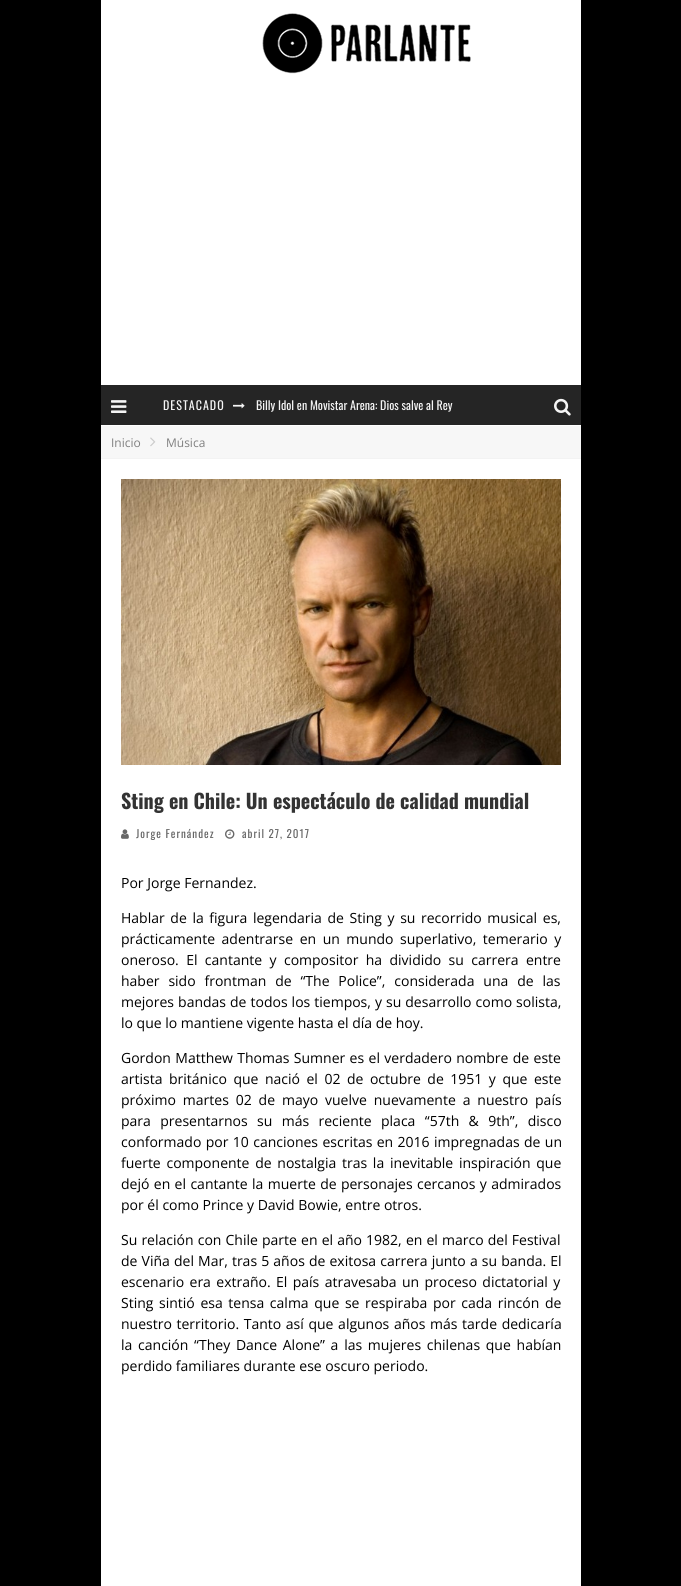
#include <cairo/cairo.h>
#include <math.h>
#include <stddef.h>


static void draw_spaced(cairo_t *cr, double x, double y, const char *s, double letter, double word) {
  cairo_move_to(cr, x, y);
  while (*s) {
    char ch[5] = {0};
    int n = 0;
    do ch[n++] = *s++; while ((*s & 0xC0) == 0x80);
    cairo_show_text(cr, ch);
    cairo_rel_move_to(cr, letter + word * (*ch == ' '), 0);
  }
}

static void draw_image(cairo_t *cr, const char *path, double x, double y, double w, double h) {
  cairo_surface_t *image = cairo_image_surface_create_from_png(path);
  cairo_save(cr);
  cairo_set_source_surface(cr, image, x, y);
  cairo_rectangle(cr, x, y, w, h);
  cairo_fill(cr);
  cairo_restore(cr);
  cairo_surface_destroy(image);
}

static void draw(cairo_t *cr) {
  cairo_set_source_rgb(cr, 0, 0, 0);
  cairo_paint(cr);
  cairo_set_source_rgb(cr, 1, 1, 1);
  cairo_rectangle(cr, 101, 0, 480, 426);
  cairo_fill(cr);
  draw_image(cr, "images/1.png", 262, 13, 209, 61);
  cairo_set_source_rgb(cr, 37 / 255.0, 37 / 255.0, 37 / 255.0);
  cairo_rectangle(cr, 101, 385, 480, 40);
  cairo_fill(cr);
  draw_image(cr, "images/2.png", 111, 400, 16, 13);
  draw_image(cr, "images/3.png", 233, 403, 12, 6);
  draw_image(cr, "images/4.png", 554, 398, 17, 18);
  cairo_set_source_rgb(cr, 247 / 255.0, 247 / 255.0, 247 / 255.0);
  cairo_rectangle(cr, 101, 426, 480, 32);
  cairo_fill(cr);
  cairo_set_source_rgb(cr, 243 / 255.0, 243 / 255.0, 243 / 255.0);
  cairo_rectangle(cr, 101, 458, 480, 1);
  cairo_fill(cr);
  draw_image(cr, "images/5.png", 150, 437, 6, 10);
  cairo_set_source_rgb(cr, 1, 1, 1);
  cairo_rectangle(cr, 101, 459, 480, 1127);
  cairo_fill(cr);
  draw_image(cr, "images/6.png", 121, 479, 440, 286);
  draw_image(cr, "images/7.png", 121, 829, 8, 10);
  draw_image(cr, "images/8.png", 225, 829, 10, 10);
  cairo_select_font_face(cr, "Oswald", CAIRO_FONT_SLANT_NORMAL, CAIRO_FONT_WEIGHT_NORMAL);
  cairo_set_font_size(cr, 12);
  cairo_set_source_rgb(cr, 245 / 255.0, 245 / 255.0, 245 / 255.0);
  draw_spaced(cr, 163, 410, "DESTACADO", 1, 0);
  cairo_move_to(cr, 256, 410);
  cairo_show_text(cr, "Billy Idol en Movistar Arena: Dios salve al Rey");
  cairo_select_font_face(cr, "Open Sans", CAIRO_FONT_SLANT_NORMAL, CAIRO_FONT_WEIGHT_NORMAL);
  cairo_set_source_rgb(cr, 128 / 255.0, 128 / 255.0, 128 / 255.0);
  cairo_move_to(cr, 111, 447);
  cairo_show_text(cr, "Inicio");
  cairo_move_to(cr, 166, 447);
  cairo_show_text(cr, "Música");
  cairo_select_font_face(cr, "Oswald", CAIRO_FONT_SLANT_NORMAL, CAIRO_FONT_WEIGHT_BOLD);
  cairo_set_font_size(cr, 20);
  cairo_set_source_rgb(cr, 51 / 255.0, 51 / 255.0, 51 / 255.0);
  cairo_move_to(cr, 121, 809);
  cairo_show_text(cr, "Sting en Chile: Un espectáculo de calidad mundial");
  cairo_select_font_face(cr, "Oswald", CAIRO_FONT_SLANT_NORMAL, CAIRO_FONT_WEIGHT_NORMAL);
  cairo_set_font_size(cr, 11);
  cairo_set_source_rgb(cr, 103 / 255.0, 103 / 255.0, 103 / 255.0);
  draw_spaced(cr, 136, 838, "Jorge Fernández", 1, 0);
  draw_spaced(cr, 242, 838, "abril 27, 2017", 1, 0);
  cairo_select_font_face(cr, "Open Sans", CAIRO_FONT_SLANT_NORMAL, CAIRO_FONT_WEIGHT_NORMAL);
  cairo_set_font_size(cr, 14);
  cairo_set_source_rgb(cr, 0, 0, 0);
  cairo_move_to(cr, 121, 888);
  cairo_show_text(cr, "Por Jorge Fernandez.");
  draw_spaced(cr, 121, 923, "Hablar de la figura legendaria de Sting y su recorrido musical es,", 0, 2);
  draw_spaced(cr, 121, 944, "prácticamente adentrarse en un mundo superlativo, temerario y", 0, 2.9);
  draw_spaced(cr, 121, 965, "oneroso. El cantante y compositor ha dividido su carrera entre", 0, 3.75);
  draw_spaced(cr, 121, 986, "haber sido frontman de “The Police”, considerada una de las", 0, 5.25);
  draw_spaced(cr, 121, 1007, "mejores bandas de todos los tiempos, y su desarrollo como solista,", 0, 0.4);
  cairo_move_to(cr, 121, 1028);
  cairo_show_text(cr, "lo que lo mantiene vigente hasta el día de hoy.");
  draw_spaced(cr, 121, 1063, "Gordon Matthew Thomas Sumner es el verdadero nombre de este", 0, 0.75);
  draw_spaced(cr, 121, 1084, "artista británico que nació el 02 de octubre de 1951 y que este", 0, 2.9);
  draw_spaced(cr, 121, 1105, "próximo martes 02 de mayo vuelve nuevamente a nuestro país", 0, 3.25);
  draw_spaced(cr, 121, 1126, "para presentarnos su más reciente placa “57th & 9th”, disco", 0, 5.75);
  draw_spaced(cr, 121, 1147, "conformado por 10 canciones escritas en 2016 impregnadas de un", 0, 0.75);
  draw_spaced(cr, 121, 1168, "fuerte componente de nostalgia tras la inevitable inspiración que", 0, 2.1);
  draw_spaced(cr, 121, 1189, "dejó en el cantante la muerte de personajes cercanos y admirados", 0, 0.75);
  cairo_move_to(cr, 121, 1210);
  cairo_show_text(cr, "por él como Prince y David Bowie, entre otros.");
  draw_spaced(cr, 121, 1245, "Su relación con Chile parte en el año 1982, en el marco del Festival", 0, 0.5);
  draw_spaced(cr, 121, 1266, "de Viña del Mar, tras 5 años de exitosa carrera junto a su banda. El", 0, 0.5);
  draw_spaced(cr, 121, 1287, "escenario era extraño. El país atravesaba un proceso dictatorial y", 0, 1.75);
  draw_spaced(cr, 121, 1308, "Sting sintió esa tensa calma que se respiraba por cada rincón de", 0, 2);
  draw_spaced(cr, 121, 1329, "nuestro territorio. Tanto así que algunos años más tarde dedicaría", 0, 1);
  draw_spaced(cr, 121, 1350, "la canción “They Dance Alone” a las mujeres chilenas que habían", 0, 2.1);
  cairo_move_to(cr, 121, 1371);
  cairo_show_text(cr, "perdido familiares durante ese oscuro periodo.");
}

int main(void) {
  cairo_surface_t *surface = cairo_image_surface_create(CAIRO_FORMAT_RGB24, 681, 1586);
  cairo_t *cr = cairo_create(surface);
  cairo_font_options_t *options = cairo_font_options_create();
  cairo_font_options_set_hint_metrics(options, CAIRO_HINT_METRICS_OFF);
  cairo_font_options_set_hint_style(options, CAIRO_HINT_STYLE_NONE);
  cairo_set_font_options(cr, options);
  cairo_set_miter_limit(cr, 4);
  draw(cr);
  cairo_surface_write_to_png(surface, "out.png");
  cairo_font_options_destroy(options);
  cairo_destroy(cr);
  cairo_surface_destroy(surface);
  return 0;
}
